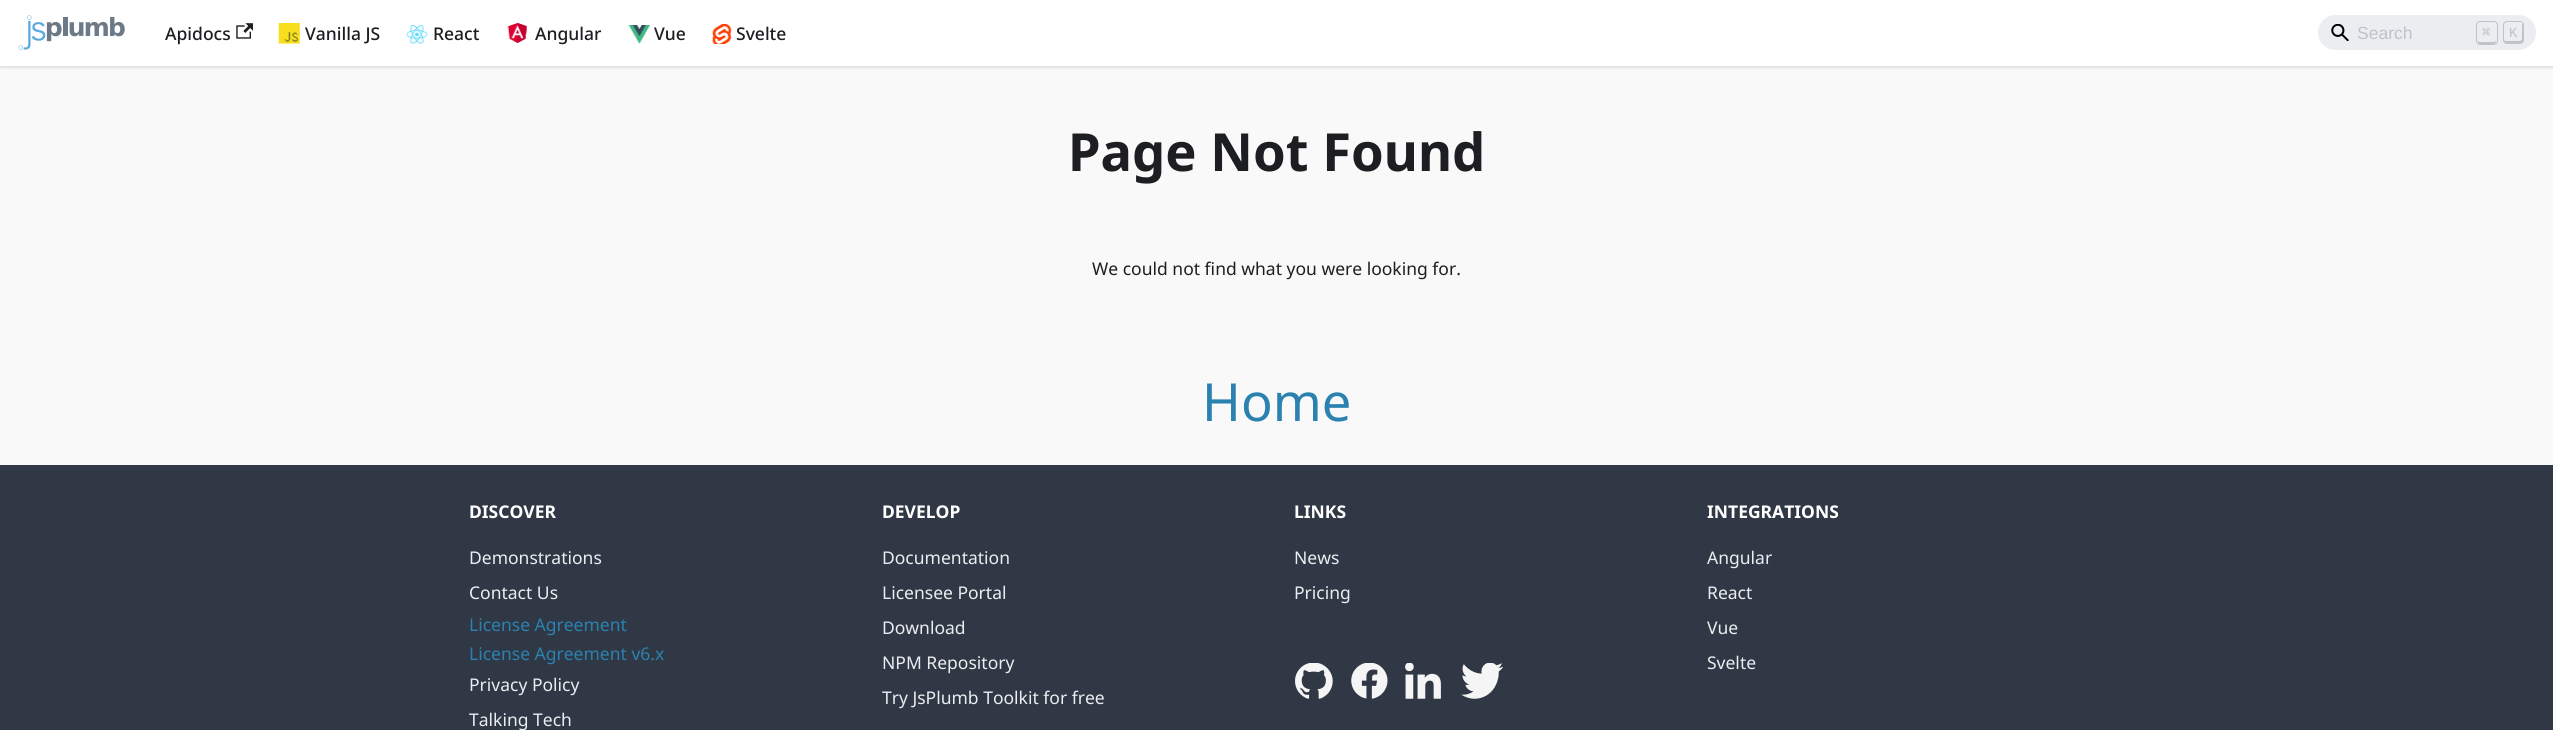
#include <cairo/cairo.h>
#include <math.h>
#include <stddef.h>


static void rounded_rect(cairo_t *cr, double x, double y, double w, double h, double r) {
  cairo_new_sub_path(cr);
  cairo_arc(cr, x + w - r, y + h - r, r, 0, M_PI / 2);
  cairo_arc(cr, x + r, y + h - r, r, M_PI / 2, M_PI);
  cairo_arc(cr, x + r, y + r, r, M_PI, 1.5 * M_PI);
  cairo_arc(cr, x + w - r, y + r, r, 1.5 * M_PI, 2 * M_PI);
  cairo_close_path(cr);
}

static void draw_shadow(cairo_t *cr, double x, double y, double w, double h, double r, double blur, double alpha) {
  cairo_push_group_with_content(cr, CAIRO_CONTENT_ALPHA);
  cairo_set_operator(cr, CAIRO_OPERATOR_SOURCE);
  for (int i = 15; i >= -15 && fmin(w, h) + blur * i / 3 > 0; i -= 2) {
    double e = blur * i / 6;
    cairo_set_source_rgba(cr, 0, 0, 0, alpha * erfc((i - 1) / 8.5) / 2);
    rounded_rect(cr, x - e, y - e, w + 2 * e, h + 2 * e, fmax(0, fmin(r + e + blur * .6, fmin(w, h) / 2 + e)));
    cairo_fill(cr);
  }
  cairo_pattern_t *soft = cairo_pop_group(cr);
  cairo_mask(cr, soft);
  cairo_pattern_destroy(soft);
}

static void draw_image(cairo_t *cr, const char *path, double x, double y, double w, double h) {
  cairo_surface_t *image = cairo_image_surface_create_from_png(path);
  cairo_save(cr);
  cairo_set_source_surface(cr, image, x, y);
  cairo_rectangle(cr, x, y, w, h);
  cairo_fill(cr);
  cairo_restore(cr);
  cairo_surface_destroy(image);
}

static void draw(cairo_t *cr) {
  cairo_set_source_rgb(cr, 249 / 255.0, 249 / 255.0, 249 / 255.0);
  cairo_paint(cr);
  cairo_set_source_rgb(cr, 0, 0, 0);
  draw_shadow(cr, 0, 1, 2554, 67, 0, 1, 0.1);
  cairo_set_source_rgb(cr, 1, 1, 1);
  cairo_rectangle(cr, 0, 0, 2553, 66);
  cairo_fill(cr);
  draw_image(cr, "images/1.png", 18, 15, 107, 35);
  draw_image(cr, "images/2.png", 236, 23, 17, 16);
  draw_image(cr, "images/3.png", 278, 23, 22, 21);
  draw_image(cr, "images/4.png", 406, 25, 22, 19);
  draw_image(cr, "images/5.png", 507, 23, 20, 20);
  draw_image(cr, "images/6.png", 628, 25, 22, 19);
  draw_image(cr, "images/7.png", 712, 24, 20, 20);
  cairo_set_source_rgb(cr, 235 / 255.0, 237 / 255.0, 240 / 255.0);
  rounded_rect(cr, 2318, 15, 218, 35, 17.5);
  cairo_fill(cr);
  draw_image(cr, "images/8.png", 2331, 24, 18, 17);
  cairo_set_source_rgb(cr, 190 / 255.0, 195 / 255.0, 201 / 255.0);
  cairo_new_path(cr);
  cairo_move_to(cr, 2478, 40);
  cairo_curve_to(cr, 2478, 44, 2479, 44, 2482.5, 44);
  cairo_line_to(cr, 2491.5, 44);
  cairo_curve_to(cr, 2495, 44, 2496, 44, 2496, 40);
  cairo_curve_to(cr, 2496, 41, 2495, 42, 2494, 42);
  cairo_line_to(cr, 2480, 42);
  cairo_curve_to(cr, 2479, 42, 2478, 41, 2478, 40);
  cairo_close_path(cr);
  cairo_fill(cr);
  rounded_rect(cr, 2476.5, 21.5, 21, 23, 3.5);
  cairo_set_line_width(cr, 1);
  cairo_stroke(cr);
  cairo_new_path(cr);
  cairo_move_to(cr, 2504, 39);
  cairo_line_to(cr, 2504, 40.5);
  cairo_curve_to(cr, 2504, 42, 2505, 43, 2506.5, 43);
  cairo_line_to(cr, 2520.5, 43);
  cairo_curve_to(cr, 2522, 43, 2523, 42, 2523, 40.5);
  cairo_line_to(cr, 2523, 25.5);
  cairo_curve_to(cr, 2523, 24.5, 2522.5, 24, 2522, 23.5);
  cairo_line_to(cr, 2522, 36.5);
  cairo_curve_to(cr, 2522, 40.5, 2522, 41, 2517.5, 41);
  cairo_line_to(cr, 2508.5, 41);
  cairo_curve_to(cr, 2507, 41, 2504, 41.5, 2504, 39);
  cairo_close_path(cr);
  cairo_fill(cr);
  rounded_rect(cr, 2503.5, 21.5, 20, 22, 3.5);
  cairo_stroke(cr);
  cairo_set_source_rgb(cr, 48 / 255.0, 56 / 255.0, 70 / 255.0);
  cairo_rectangle(cr, 0, 465, 2553, 265);
  cairo_fill(cr);
  draw_image(cr, "images/9.png", 1295, 663, 38, 36);
  draw_image(cr, "images/10.png", 1351, 663, 37, 36);
  draw_image(cr, "images/11.png", 1405, 663, 36, 36);
  draw_image(cr, "images/12.png", 1461, 663, 43, 36);
  cairo_select_font_face(cr, "Noto Sans Medium", CAIRO_FONT_SLANT_NORMAL, CAIRO_FONT_WEIGHT_NORMAL);
  cairo_set_font_size(cr, 17.5);
  cairo_set_source_rgb(cr, 28 / 255.0, 30 / 255.0, 33 / 255.0);
  cairo_move_to(cr, 165, 40);
  cairo_show_text(cr, "Apidocs");
  cairo_move_to(cr, 305, 40);
  cairo_show_text(cr, "Vanilla JS");
  cairo_move_to(cr, 433, 40);
  cairo_show_text(cr, "React");
  cairo_move_to(cr, 535, 40);
  cairo_show_text(cr, "Angular");
  cairo_move_to(cr, 654, 40);
  cairo_show_text(cr, "Vue");
  cairo_move_to(cr, 736, 40);
  cairo_show_text(cr, "Svelte");
  cairo_select_font_face(cr, "Liberation Sans", CAIRO_FONT_SLANT_NORMAL, CAIRO_FONT_WEIGHT_NORMAL);
  cairo_set_source_rgb(cr, 190 / 255.0, 195 / 255.0, 201 / 255.0);
  cairo_move_to(cr, 2357, 39);
  cairo_show_text(cr, "Search");
  cairo_select_font_face(cr, "DejaVu Sans Mono", CAIRO_FONT_SLANT_NORMAL, CAIRO_FONT_WEIGHT_NORMAL);
  cairo_set_font_size(cr, 14);
  cairo_move_to(cr, 2482, 37);
  cairo_show_text(cr, "⌘");
  cairo_select_font_face(cr, "Liberation Mono", CAIRO_FONT_SLANT_NORMAL, CAIRO_FONT_WEIGHT_NORMAL);
  cairo_move_to(cr, 2509, 37);
  cairo_show_text(cr, "K");
  cairo_select_font_face(cr, "Noto Sans", CAIRO_FONT_SLANT_NORMAL, CAIRO_FONT_WEIGHT_BOLD);
  cairo_set_font_size(cr, 52.5);
  cairo_set_source_rgb(cr, 28 / 255.0, 30 / 255.0, 33 / 255.0);
  cairo_move_to(cr, 1068, 171);
  cairo_show_text(cr, "Page Not Found");
  cairo_select_font_face(cr, "Noto Sans", CAIRO_FONT_SLANT_NORMAL, CAIRO_FONT_WEIGHT_NORMAL);
  cairo_set_font_size(cr, 17.5);
  cairo_move_to(cr, 1092, 275);
  cairo_show_text(cr, "We could not find what you were looking for.");
  cairo_set_font_size(cr, 52.5);
  cairo_set_source_rgb(cr, 43 / 255.0, 129 / 255.0, 175 / 255.0);
  cairo_move_to(cr, 1202, 421);
  cairo_show_text(cr, "Home");
  cairo_select_font_face(cr, "Noto Sans", CAIRO_FONT_SLANT_NORMAL, CAIRO_FONT_WEIGHT_BOLD);
  cairo_set_font_size(cr, 17.5);
  cairo_set_source_rgb(cr, 1, 1, 1);
  cairo_move_to(cr, 469, 518);
  cairo_show_text(cr, "DISCOVER");
  cairo_select_font_face(cr, "Noto Sans", CAIRO_FONT_SLANT_NORMAL, CAIRO_FONT_WEIGHT_NORMAL);
  cairo_set_source_rgb(cr, 235 / 255.0, 237 / 255.0, 240 / 255.0);
  cairo_move_to(cr, 469, 564);
  cairo_show_text(cr, "Demonstrations");
  cairo_move_to(cr, 469, 599);
  cairo_show_text(cr, "Contact Us");
  cairo_set_source_rgb(cr, 43 / 255.0, 129 / 255.0, 175 / 255.0);
  cairo_move_to(cr, 469, 631);
  cairo_show_text(cr, "License Agreement");
  cairo_move_to(cr, 469, 660);
  cairo_show_text(cr, "License Agreement v6.x");
  cairo_set_source_rgb(cr, 235 / 255.0, 237 / 255.0, 240 / 255.0);
  cairo_move_to(cr, 469, 691);
  cairo_show_text(cr, "Privacy Policy");
  cairo_move_to(cr, 469, 726);
  cairo_show_text(cr, "Talking Tech");
  cairo_select_font_face(cr, "Noto Sans", CAIRO_FONT_SLANT_NORMAL, CAIRO_FONT_WEIGHT_BOLD);
  cairo_set_source_rgb(cr, 1, 1, 1);
  cairo_move_to(cr, 882, 518);
  cairo_show_text(cr, "DEVELOP");
  cairo_select_font_face(cr, "Noto Sans", CAIRO_FONT_SLANT_NORMAL, CAIRO_FONT_WEIGHT_NORMAL);
  cairo_set_source_rgb(cr, 235 / 255.0, 237 / 255.0, 240 / 255.0);
  cairo_move_to(cr, 882, 564);
  cairo_show_text(cr, "Documentation");
  cairo_move_to(cr, 882, 599);
  cairo_show_text(cr, "Licensee Portal");
  cairo_move_to(cr, 882, 634);
  cairo_show_text(cr, "Download");
  cairo_move_to(cr, 882, 669);
  cairo_show_text(cr, "NPM Repository");
  cairo_move_to(cr, 882, 704);
  cairo_show_text(cr, "Try JsPlumb Toolkit for free");
  cairo_select_font_face(cr, "Noto Sans", CAIRO_FONT_SLANT_NORMAL, CAIRO_FONT_WEIGHT_BOLD);
  cairo_set_source_rgb(cr, 1, 1, 1);
  cairo_move_to(cr, 1294, 518);
  cairo_show_text(cr, "LINKS");
  cairo_select_font_face(cr, "Noto Sans", CAIRO_FONT_SLANT_NORMAL, CAIRO_FONT_WEIGHT_NORMAL);
  cairo_set_source_rgb(cr, 235 / 255.0, 237 / 255.0, 240 / 255.0);
  cairo_move_to(cr, 1294, 564);
  cairo_show_text(cr, "News");
  cairo_move_to(cr, 1294, 599);
  cairo_show_text(cr, "Pricing");
  cairo_select_font_face(cr, "Noto Sans", CAIRO_FONT_SLANT_NORMAL, CAIRO_FONT_WEIGHT_BOLD);
  cairo_set_source_rgb(cr, 1, 1, 1);
  cairo_move_to(cr, 1707, 518);
  cairo_show_text(cr, "INTEGRATIONS");
  cairo_select_font_face(cr, "Noto Sans", CAIRO_FONT_SLANT_NORMAL, CAIRO_FONT_WEIGHT_NORMAL);
  cairo_set_source_rgb(cr, 235 / 255.0, 237 / 255.0, 240 / 255.0);
  cairo_move_to(cr, 1707, 564);
  cairo_show_text(cr, "Angular");
  cairo_move_to(cr, 1707, 599);
  cairo_show_text(cr, "React");
  cairo_move_to(cr, 1707, 634);
  cairo_show_text(cr, "Vue");
  cairo_move_to(cr, 1707, 669);
  cairo_show_text(cr, "Svelte");
}

int main(void) {
  cairo_surface_t *surface = cairo_image_surface_create(CAIRO_FORMAT_RGB24, 2553, 730);
  cairo_t *cr = cairo_create(surface);
  cairo_font_options_t *options = cairo_font_options_create();
  cairo_font_options_set_hint_metrics(options, CAIRO_HINT_METRICS_OFF);
  cairo_font_options_set_hint_style(options, CAIRO_HINT_STYLE_NONE);
  cairo_set_font_options(cr, options);
  cairo_set_miter_limit(cr, 4);
  draw(cr);
  cairo_surface_write_to_png(surface, "out.png");
  cairo_font_options_destroy(options);
  cairo_destroy(cr);
  cairo_surface_destroy(surface);
  return 0;
}
